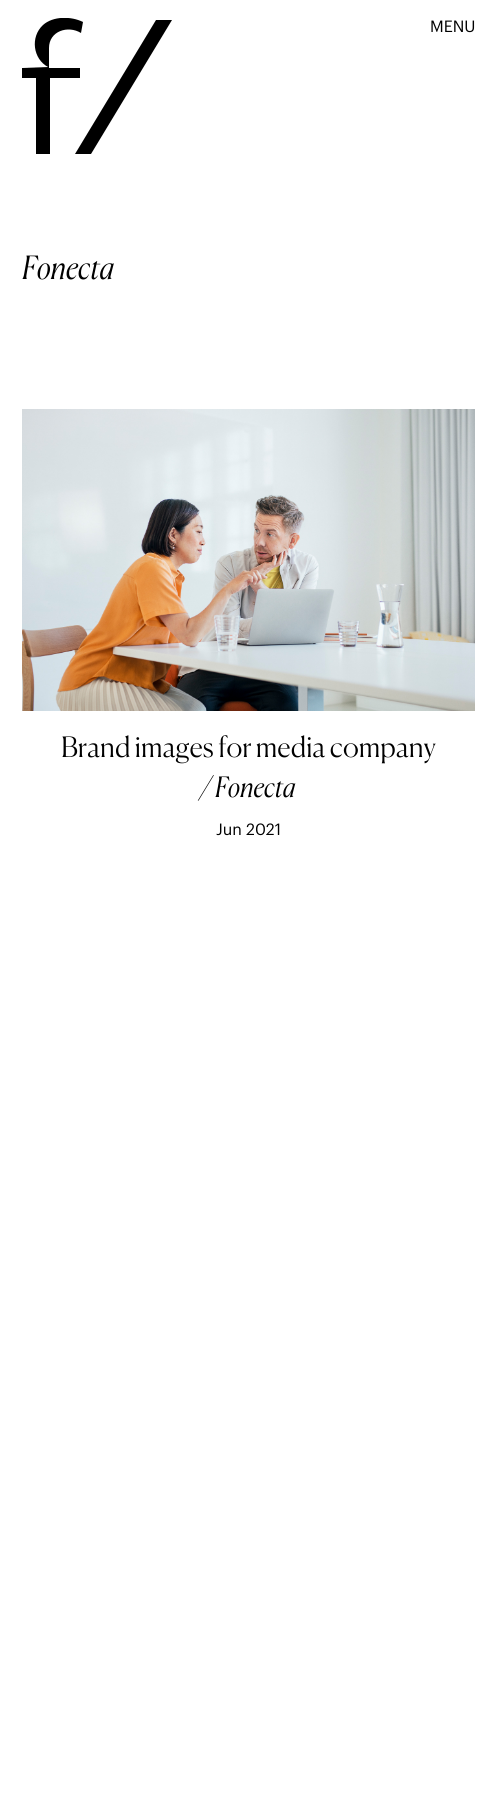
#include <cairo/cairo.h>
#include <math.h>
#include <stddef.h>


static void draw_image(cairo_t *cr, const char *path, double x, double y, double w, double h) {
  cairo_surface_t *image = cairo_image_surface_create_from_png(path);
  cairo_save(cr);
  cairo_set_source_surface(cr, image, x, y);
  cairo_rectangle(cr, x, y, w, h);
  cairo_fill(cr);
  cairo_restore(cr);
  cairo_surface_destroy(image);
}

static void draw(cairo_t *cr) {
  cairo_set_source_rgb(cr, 1, 1, 1);
  cairo_paint(cr);
  cairo_set_source_rgb(cr, 0, 0, 0);
  cairo_new_path(cr);
  cairo_move_to(cr, 172, 20);
  cairo_line_to(cr, 156, 20);
  cairo_line_to(cr, 75, 154);
  cairo_line_to(cr, 91, 154);
  cairo_close_path(cr);
  cairo_fill(cr);
  cairo_save(cr);
  cairo_rectangle(cr, 22, 18, 150, 136);
  cairo_clip(cr);
  cairo_new_path(cr);
  cairo_move_to(cr, 49, 48);
  cairo_line_to(cr, 49, 68);
  cairo_line_to(cr, 80, 68);
  cairo_line_to(cr, 80, 78);
  cairo_line_to(cr, 50, 78);
  cairo_line_to(cr, 50, 154);
  cairo_line_to(cr, 36, 154);
  cairo_line_to(cr, 36, 78);
  cairo_line_to(cr, 22, 78);
  cairo_line_to(cr, 22, 68);
  cairo_line_to(cr, 48, 67);
  cairo_curve_to(cr, 33, 59, 30, 37, 43, 25);
  cairo_curve_to(cr, 53, 16, 71, 16, 83, 22);
  cairo_line_to(cr, 81, 33);
  cairo_curve_to(cr, 68, 25, 49, 31, 49, 48);
  cairo_fill(cr);
  cairo_restore(cr);
  draw_image(cr, "images/1.png", 22, 409, 453, 302);
  cairo_select_font_face(cr, "Graphik", CAIRO_FONT_SLANT_NORMAL, CAIRO_FONT_WEIGHT_NORMAL);
  cairo_set_font_size(cr, 16);
  cairo_move_to(cr, 430, 32);
  cairo_show_text(cr, "MENU");
  cairo_select_font_face(cr, "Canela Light", CAIRO_FONT_SLANT_ITALIC, CAIRO_FONT_WEIGHT_NORMAL);
  cairo_set_font_size(cr, 32);
  cairo_move_to(cr, 22, 279);
  cairo_show_text(cr, "Fonecta");
  cairo_select_font_face(cr, "Canela Light", CAIRO_FONT_SLANT_NORMAL, CAIRO_FONT_WEIGHT_NORMAL);
  cairo_set_font_size(cr, 28);
  cairo_move_to(cr, 61, 757);
  cairo_show_text(cr, "Brand images for media company");
  cairo_select_font_face(cr, "Canela Light", CAIRO_FONT_SLANT_ITALIC, CAIRO_FONT_WEIGHT_NORMAL);
  cairo_move_to(cr, 201, 797);
  cairo_show_text(cr, "/ Fonecta");
  cairo_select_font_face(cr, "Graphik", CAIRO_FONT_SLANT_NORMAL, CAIRO_FONT_WEIGHT_NORMAL);
  cairo_set_font_size(cr, 16);
  cairo_move_to(cr, 216, 835);
  cairo_show_text(cr, "Jun 2021");
}

int main(void) {
  cairo_surface_t *surface = cairo_image_surface_create(CAIRO_FORMAT_RGB24, 497, 1808);
  cairo_t *cr = cairo_create(surface);
  cairo_font_options_t *options = cairo_font_options_create();
  cairo_font_options_set_hint_metrics(options, CAIRO_HINT_METRICS_OFF);
  cairo_font_options_set_hint_style(options, CAIRO_HINT_STYLE_NONE);
  cairo_set_font_options(cr, options);
  cairo_set_miter_limit(cr, 4);
  draw(cr);
  cairo_surface_write_to_png(surface, "out.png");
  cairo_font_options_destroy(options);
  cairo_destroy(cr);
  cairo_surface_destroy(surface);
  return 0;
}
